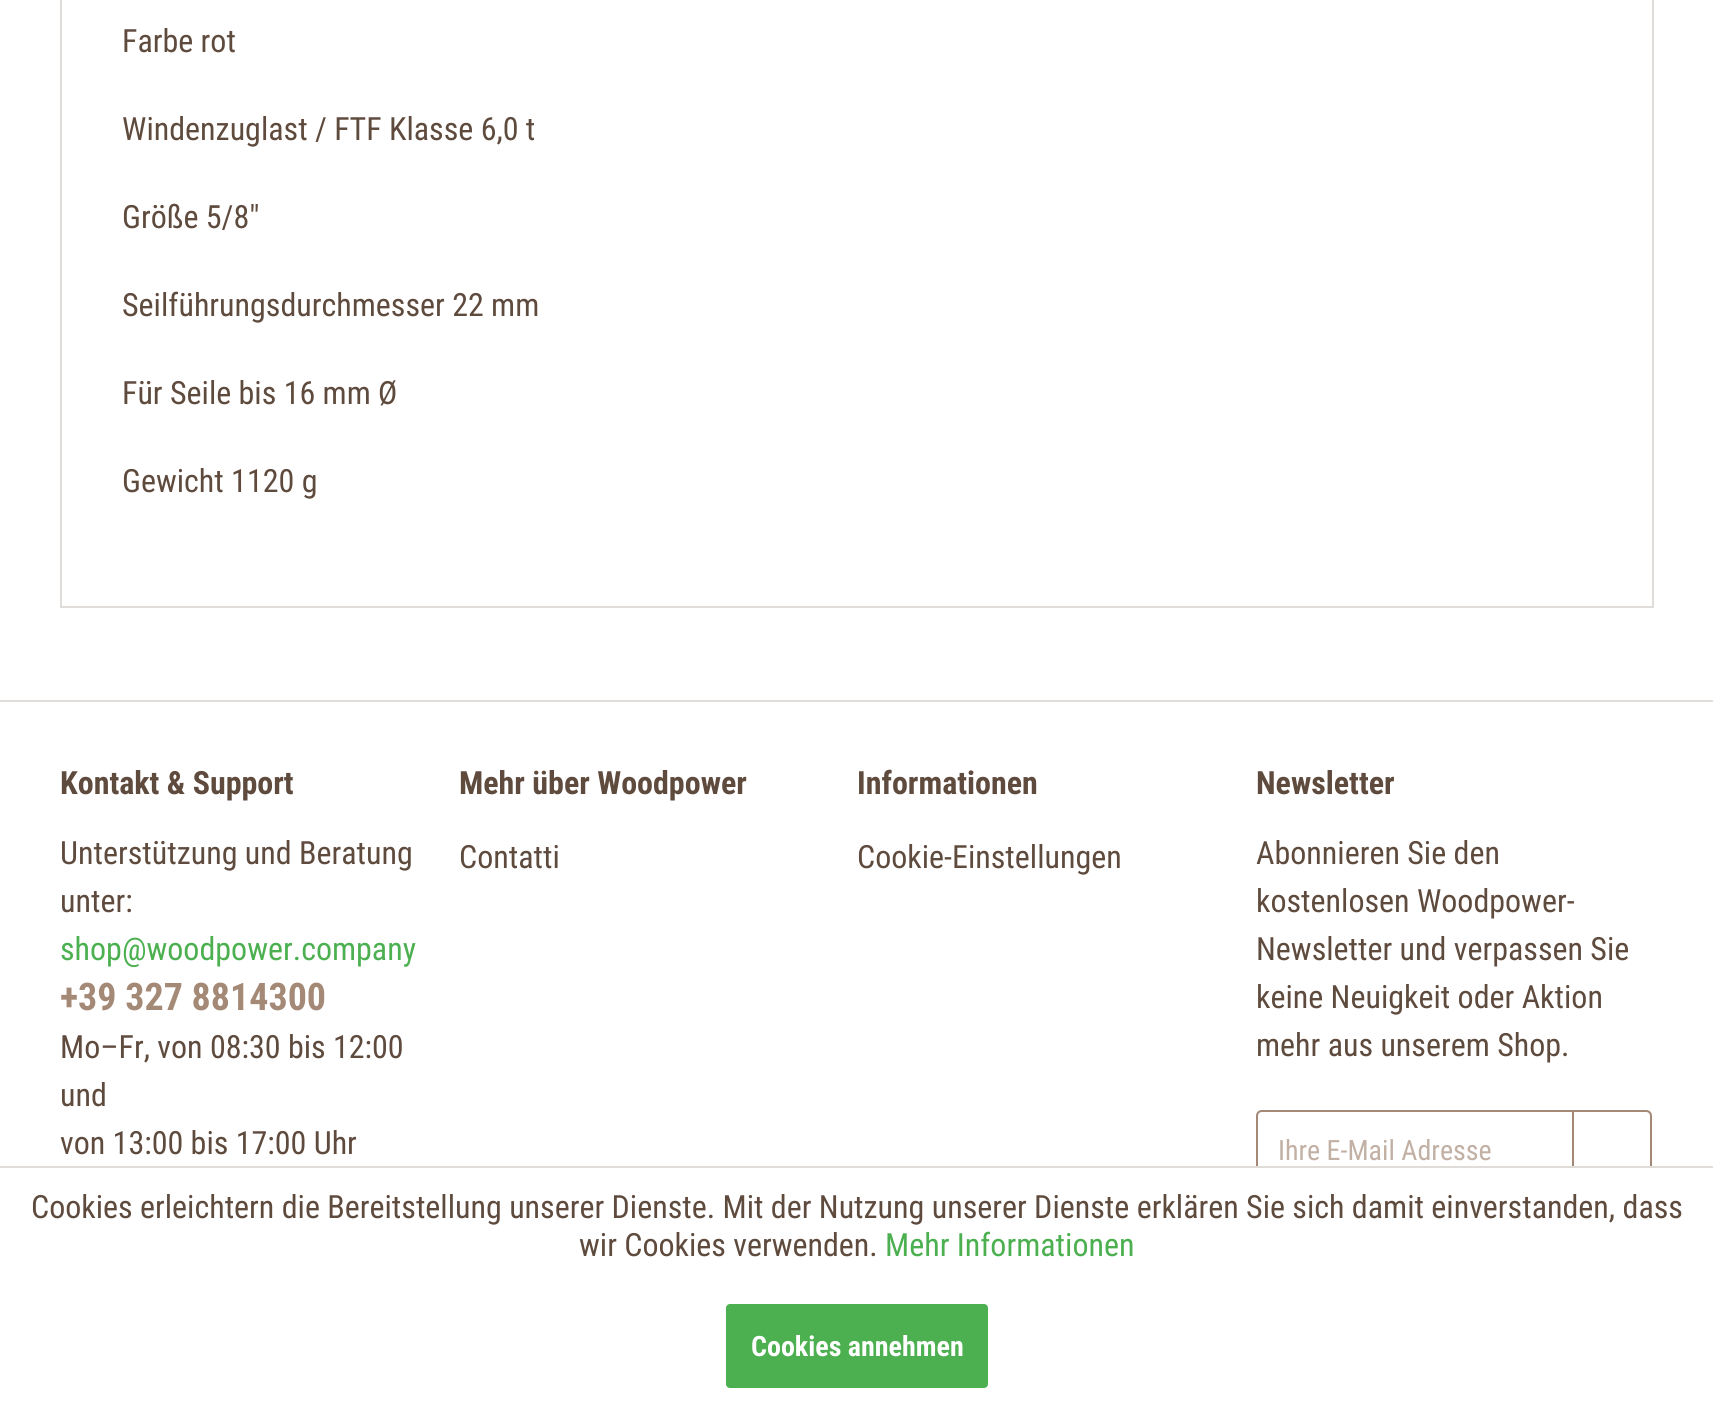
#include <cairo/cairo.h>
#include <math.h>
#include <stddef.h>


static void rounded_rect(cairo_t *cr, double x, double y, double w, double h, double r) {
  cairo_new_sub_path(cr);
  cairo_arc(cr, x + w - r, y + h - r, r, 0, M_PI / 2);
  cairo_arc(cr, x + r, y + h - r, r, M_PI / 2, M_PI);
  cairo_arc(cr, x + r, y + r, r, M_PI, 1.5 * M_PI);
  cairo_arc(cr, x + w - r, y + r, r, 1.5 * M_PI, 2 * M_PI);
  cairo_close_path(cr);
}

static void draw(cairo_t *cr) {
  cairo_set_source_rgb(cr, 1, 1, 1);
  cairo_paint(cr);
  cairo_rectangle(cr, 61, -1, 1592, 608);
  cairo_set_source_rgb(cr, 223 / 255.0, 220 / 255.0, 217 / 255.0);
  cairo_stroke(cr);
  cairo_rectangle(cr, 0, 700, 1713, 2);
  cairo_fill(cr);
  cairo_new_path(cr);
  cairo_move_to(cr, 1262, 1111);
  cairo_line_to(cr, 1573, 1111);
  cairo_line_to(cr, 1573, 1189);
  cairo_line_to(cr, 1262, 1189);
  cairo_curve_to(cr, 1259, 1189, 1257, 1187, 1257, 1184);
  cairo_line_to(cr, 1257, 1116);
  cairo_curve_to(cr, 1257, 1113, 1259, 1111, 1262, 1111);
  cairo_close_path(cr);
  cairo_set_source_rgb(cr, 163 / 255.0, 137 / 255.0, 118 / 255.0);
  cairo_stroke(cr);
  cairo_new_path(cr);
  cairo_move_to(cr, 1573, 1111);
  cairo_line_to(cr, 1646, 1111);
  cairo_curve_to(cr, 1649, 1111, 1651, 1113, 1651, 1116);
  cairo_line_to(cr, 1651, 1184);
  cairo_curve_to(cr, 1651, 1187, 1649, 1189, 1646, 1189);
  cairo_line_to(cr, 1573, 1189);
  cairo_close_path(cr);
  cairo_stroke(cr);
  cairo_set_source_rgb(cr, 1, 1, 1);
  cairo_rectangle(cr, 1256, 1168, 396, 22);
  cairo_fill(cr);
  cairo_set_source_rgb(cr, 223 / 255.0, 220 / 255.0, 217 / 255.0);
  cairo_rectangle(cr, 0, 1166, 1713, 2);
  cairo_fill(cr);
  cairo_set_source_rgb(cr, 76 / 255.0, 176 / 255.0, 80 / 255.0);
  rounded_rect(cr, 726, 1304, 262, 84, 4);
  cairo_fill(cr);
  cairo_select_font_face(cr, "Roboto Condensed", CAIRO_FONT_SLANT_NORMAL, CAIRO_FONT_WEIGHT_NORMAL);
  cairo_set_font_size(cr, 32);
  cairo_set_source_rgb(cr, 95 / 255.0, 75 / 255.0, 62 / 255.0);
  cairo_move_to(cr, 122, 52);
  cairo_show_text(cr, "Farbe rot");
  cairo_move_to(cr, 122, 140);
  cairo_show_text(cr, "Windenzuglast / FTF Klasse 6,0 t");
  cairo_move_to(cr, 122, 228);
  cairo_show_text(cr, "Größe 5/8\"");
  cairo_move_to(cr, 122, 316);
  cairo_show_text(cr, "Seilführungsdurchmesser 22 mm");
  cairo_move_to(cr, 122, 404);
  cairo_show_text(cr, "Für Seile bis 16 mm Ø");
  cairo_move_to(cr, 122, 492);
  cairo_show_text(cr, "Gewicht 1120 g");
  cairo_select_font_face(cr, "Roboto Condensed", CAIRO_FONT_SLANT_NORMAL, CAIRO_FONT_WEIGHT_BOLD);
  cairo_move_to(cr, 60, 794);
  cairo_show_text(cr, "Kontakt & Support");
  cairo_select_font_face(cr, "Roboto Condensed", CAIRO_FONT_SLANT_NORMAL, CAIRO_FONT_WEIGHT_NORMAL);
  cairo_move_to(cr, 60, 864);
  cairo_show_text(cr, "Unterstützung und Beratung");
  cairo_move_to(cr, 60, 912);
  cairo_show_text(cr, "unter:");
  cairo_set_source_rgb(cr, 76 / 255.0, 176 / 255.0, 80 / 255.0);
  cairo_move_to(cr, 60, 960);
  cairo_show_text(cr, "shop@woodpower.company");
  cairo_select_font_face(cr, "Roboto Condensed", CAIRO_FONT_SLANT_NORMAL, CAIRO_FONT_WEIGHT_BOLD);
  cairo_set_font_size(cr, 38);
  cairo_set_source_rgb(cr, 163 / 255.0, 137 / 255.0, 118 / 255.0);
  cairo_move_to(cr, 60, 1010);
  cairo_show_text(cr, "+39 327 8814300");
  cairo_select_font_face(cr, "Roboto Condensed", CAIRO_FONT_SLANT_NORMAL, CAIRO_FONT_WEIGHT_NORMAL);
  cairo_set_font_size(cr, 32);
  cairo_set_source_rgb(cr, 95 / 255.0, 75 / 255.0, 62 / 255.0);
  cairo_move_to(cr, 60, 1058);
  cairo_show_text(cr, "Mo–Fr, von 08:30 bis 12:00");
  cairo_move_to(cr, 60, 1106);
  cairo_show_text(cr, "und");
  cairo_move_to(cr, 60, 1154);
  cairo_show_text(cr, "von 13:00 bis 17:00 Uhr");
  cairo_select_font_face(cr, "Roboto Condensed", CAIRO_FONT_SLANT_NORMAL, CAIRO_FONT_WEIGHT_BOLD);
  cairo_move_to(cr, 459, 794);
  cairo_show_text(cr, "Mehr über Woodpower");
  cairo_select_font_face(cr, "Roboto Condensed", CAIRO_FONT_SLANT_NORMAL, CAIRO_FONT_WEIGHT_NORMAL);
  cairo_move_to(cr, 459, 868);
  cairo_show_text(cr, "Contatti");
  cairo_select_font_face(cr, "Roboto Condensed", CAIRO_FONT_SLANT_NORMAL, CAIRO_FONT_WEIGHT_BOLD);
  cairo_move_to(cr, 857, 794);
  cairo_show_text(cr, "Informationen");
  cairo_select_font_face(cr, "Roboto Condensed", CAIRO_FONT_SLANT_NORMAL, CAIRO_FONT_WEIGHT_NORMAL);
  cairo_move_to(cr, 857, 868);
  cairo_show_text(cr, "Cookie-Einstellungen");
  cairo_select_font_face(cr, "Roboto Condensed", CAIRO_FONT_SLANT_NORMAL, CAIRO_FONT_WEIGHT_BOLD);
  cairo_move_to(cr, 1256, 794);
  cairo_show_text(cr, "Newsletter");
  cairo_select_font_face(cr, "Roboto Condensed", CAIRO_FONT_SLANT_NORMAL, CAIRO_FONT_WEIGHT_NORMAL);
  cairo_move_to(cr, 1256, 864);
  cairo_show_text(cr, "Abonnieren Sie den");
  cairo_move_to(cr, 1256, 912);
  cairo_show_text(cr, "kostenlosen Woodpower-");
  cairo_move_to(cr, 1256, 960);
  cairo_show_text(cr, "Newsletter und verpassen Sie");
  cairo_move_to(cr, 1256, 1008);
  cairo_show_text(cr, "keine Neuigkeit oder Aktion");
  cairo_move_to(cr, 1256, 1056);
  cairo_show_text(cr, "mehr aus unserem Shop.");
  cairo_set_font_size(cr, 28);
  cairo_set_source_rgb(cr, 194 / 255.0, 176 / 255.0, 164 / 255.0);
  cairo_move_to(cr, 1278, 1160);
  cairo_show_text(cr, "Ihre E-Mail Adresse");
  cairo_set_font_size(cr, 32);
  cairo_set_source_rgb(cr, 95 / 255.0, 75 / 255.0, 62 / 255.0);
  cairo_move_to(cr, 31, 1218);
  cairo_show_text(cr, "Cookies erleichtern die Bereitstellung unserer Dienste. Mit der Nutzung unserer Dienste erklären Sie sich damit einverstanden, dass");
  cairo_move_to(cr, 579, 1256);
  cairo_show_text(cr, "wir Cookies verwenden.");
  cairo_set_source_rgb(cr, 76 / 255.0, 176 / 255.0, 80 / 255.0);
  cairo_move_to(cr, 885, 1256);
  cairo_show_text(cr, "Mehr Informationen");
  cairo_select_font_face(cr, "Roboto Condensed", CAIRO_FONT_SLANT_NORMAL, CAIRO_FONT_WEIGHT_BOLD);
  cairo_set_font_size(cr, 28);
  cairo_set_source_rgb(cr, 1, 1, 1);
  cairo_move_to(cr, 751, 1356);
  cairo_show_text(cr, "Cookies annehmen");
}

int main(void) {
  cairo_surface_t *surface = cairo_image_surface_create(CAIRO_FORMAT_RGB24, 1713, 1408);
  cairo_t *cr = cairo_create(surface);
  cairo_font_options_t *options = cairo_font_options_create();
  cairo_font_options_set_hint_metrics(options, CAIRO_HINT_METRICS_OFF);
  cairo_font_options_set_hint_style(options, CAIRO_HINT_STYLE_NONE);
  cairo_set_font_options(cr, options);
  cairo_set_miter_limit(cr, 4);
  draw(cr);
  cairo_surface_write_to_png(surface, "out.png");
  cairo_font_options_destroy(options);
  cairo_destroy(cr);
  cairo_surface_destroy(surface);
  return 0;
}
